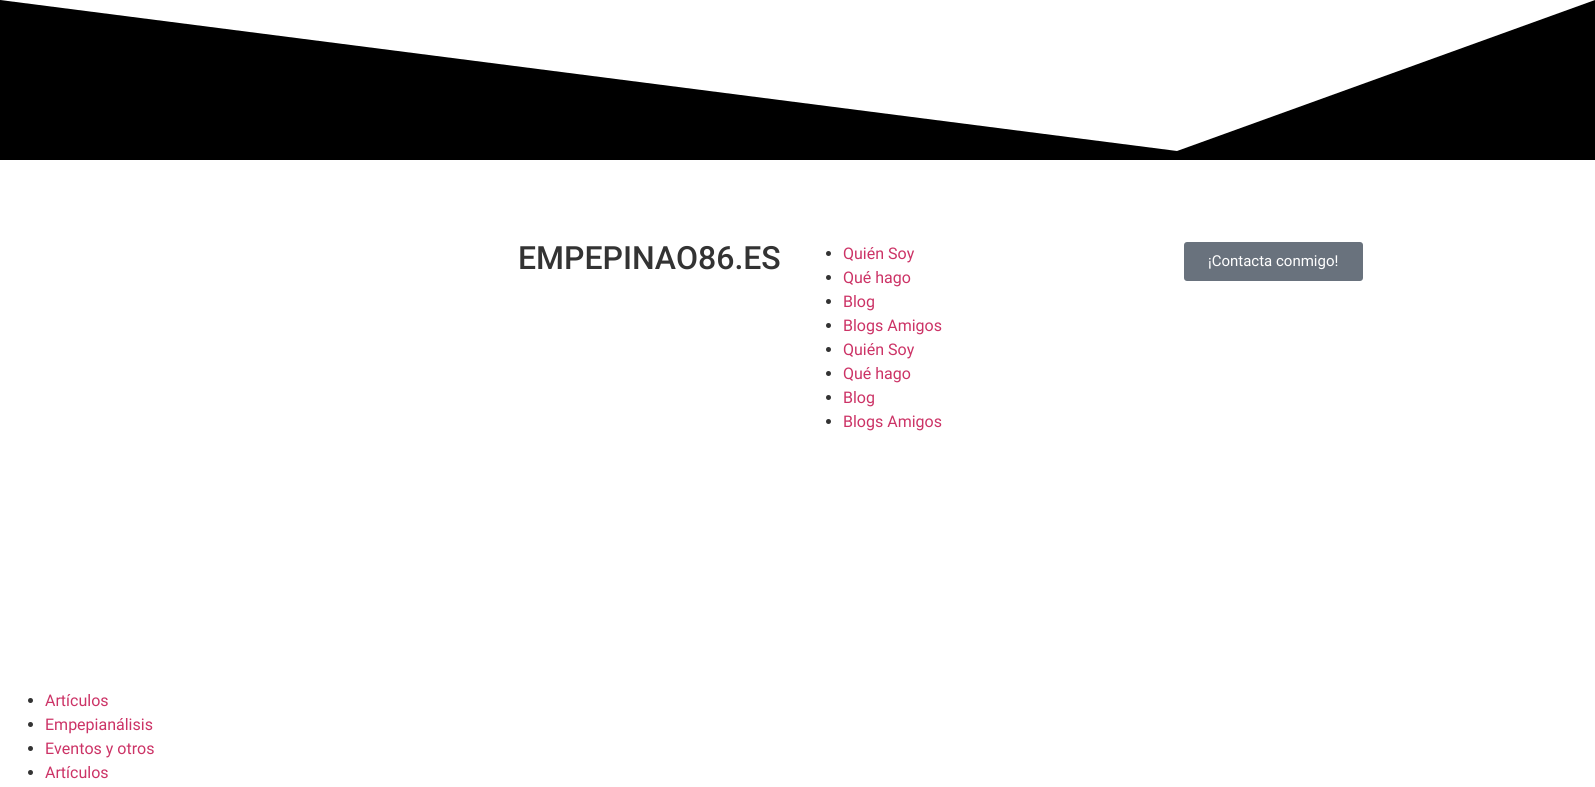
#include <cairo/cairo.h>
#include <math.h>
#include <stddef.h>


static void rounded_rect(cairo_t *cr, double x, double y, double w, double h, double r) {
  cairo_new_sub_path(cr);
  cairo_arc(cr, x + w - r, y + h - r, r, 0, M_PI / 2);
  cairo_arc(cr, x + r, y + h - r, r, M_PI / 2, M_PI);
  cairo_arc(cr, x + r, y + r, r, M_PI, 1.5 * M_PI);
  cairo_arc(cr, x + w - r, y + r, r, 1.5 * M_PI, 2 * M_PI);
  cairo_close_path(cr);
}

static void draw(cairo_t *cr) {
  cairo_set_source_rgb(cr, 1, 1, 1);
  cairo_paint(cr);
  cairo_set_source_rgb(cr, 0, 0, 0);
  cairo_new_path(cr);
  cairo_move_to(cr, 1177, 151);
  cairo_line_to(cr, 0, 0);
  cairo_line_to(cr, 0, 160);
  cairo_line_to(cr, 1595, 160);
  cairo_line_to(cr, 1595, 0);
  cairo_close_path(cr);
  cairo_fill(cr);
  cairo_set_source_rgb(cr, 51 / 255.0, 51 / 255.0, 51 / 255.0);
  cairo_arc(cr, 828.5, 253.5, 2.5, 0, 2 * M_PI);
  cairo_fill(cr);
  cairo_arc(cr, 828.5, 277.5, 2.5, 0, 2 * M_PI);
  cairo_fill(cr);
  cairo_arc(cr, 828.5, 301.5, 2.5, 0, 2 * M_PI);
  cairo_fill(cr);
  cairo_arc(cr, 828.5, 325.5, 2.5, 0, 2 * M_PI);
  cairo_fill(cr);
  cairo_arc(cr, 828.5, 349.5, 2.5, 0, 2 * M_PI);
  cairo_fill(cr);
  cairo_arc(cr, 828.5, 373.5, 2.5, 0, 2 * M_PI);
  cairo_fill(cr);
  cairo_arc(cr, 828.5, 397.5, 2.5, 0, 2 * M_PI);
  cairo_fill(cr);
  cairo_arc(cr, 828.5, 421.5, 2.5, 0, 2 * M_PI);
  cairo_fill(cr);
  cairo_set_source_rgb(cr, 105 / 255.0, 114 / 255.0, 125 / 255.0);
  rounded_rect(cr, 1184, 242, 179, 39, 3);
  cairo_fill(cr);
  cairo_set_source_rgb(cr, 51 / 255.0, 51 / 255.0, 51 / 255.0);
  cairo_arc(cr, 30.5, 700.5, 2.5, 0, 2 * M_PI);
  cairo_fill(cr);
  cairo_arc(cr, 30.5, 724.5, 2.5, 0, 2 * M_PI);
  cairo_fill(cr);
  cairo_arc(cr, 30.5, 748.5, 2.5, 0, 2 * M_PI);
  cairo_fill(cr);
  cairo_arc(cr, 30.5, 772.5, 2.5, 0, 2 * M_PI);
  cairo_fill(cr);
  cairo_select_font_face(cr, "Roboto Medium", CAIRO_FONT_SLANT_NORMAL, CAIRO_FONT_WEIGHT_NORMAL);
  cairo_set_font_size(cr, 32);
  cairo_move_to(cr, 518, 269);
  cairo_show_text(cr, "EMPEPINAO86.ES");
  cairo_select_font_face(cr, "Roboto", CAIRO_FONT_SLANT_NORMAL, CAIRO_FONT_WEIGHT_NORMAL);
  cairo_set_font_size(cr, 16);
  cairo_set_source_rgb(cr, 204 / 255.0, 51 / 255.0, 102 / 255.0);
  cairo_move_to(cr, 843, 259);
  cairo_show_text(cr, "Quién Soy");
  cairo_move_to(cr, 843, 283);
  cairo_show_text(cr, "Qué hago");
  cairo_move_to(cr, 843, 307);
  cairo_show_text(cr, "Blog");
  cairo_move_to(cr, 843, 331);
  cairo_show_text(cr, "Blogs Amigos");
  cairo_move_to(cr, 843, 355);
  cairo_show_text(cr, "Quién Soy");
  cairo_move_to(cr, 843, 379);
  cairo_show_text(cr, "Qué hago");
  cairo_move_to(cr, 843, 403);
  cairo_show_text(cr, "Blog");
  cairo_move_to(cr, 843, 427);
  cairo_show_text(cr, "Blogs Amigos");
  cairo_set_font_size(cr, 15);
  cairo_set_source_rgb(cr, 1, 1, 1);
  cairo_move_to(cr, 1208, 266);
  cairo_show_text(cr, "¡Contacta conmigo!");
  cairo_set_font_size(cr, 16);
  cairo_set_source_rgb(cr, 204 / 255.0, 51 / 255.0, 102 / 255.0);
  cairo_move_to(cr, 45, 706);
  cairo_show_text(cr, "Artículos");
  cairo_move_to(cr, 45, 730);
  cairo_show_text(cr, "Empepianálisis");
  cairo_move_to(cr, 45, 754);
  cairo_show_text(cr, "Eventos y otros");
  cairo_move_to(cr, 45, 778);
  cairo_show_text(cr, "Artículos");
}

int main(void) {
  cairo_surface_t *surface = cairo_image_surface_create(CAIRO_FORMAT_RGB24, 1595, 787);
  cairo_t *cr = cairo_create(surface);
  cairo_font_options_t *options = cairo_font_options_create();
  cairo_font_options_set_hint_metrics(options, CAIRO_HINT_METRICS_OFF);
  cairo_font_options_set_hint_style(options, CAIRO_HINT_STYLE_NONE);
  cairo_set_font_options(cr, options);
  cairo_set_miter_limit(cr, 4);
  draw(cr);
  cairo_surface_write_to_png(surface, "out.png");
  cairo_font_options_destroy(options);
  cairo_destroy(cr);
  cairo_surface_destroy(surface);
  return 0;
}
